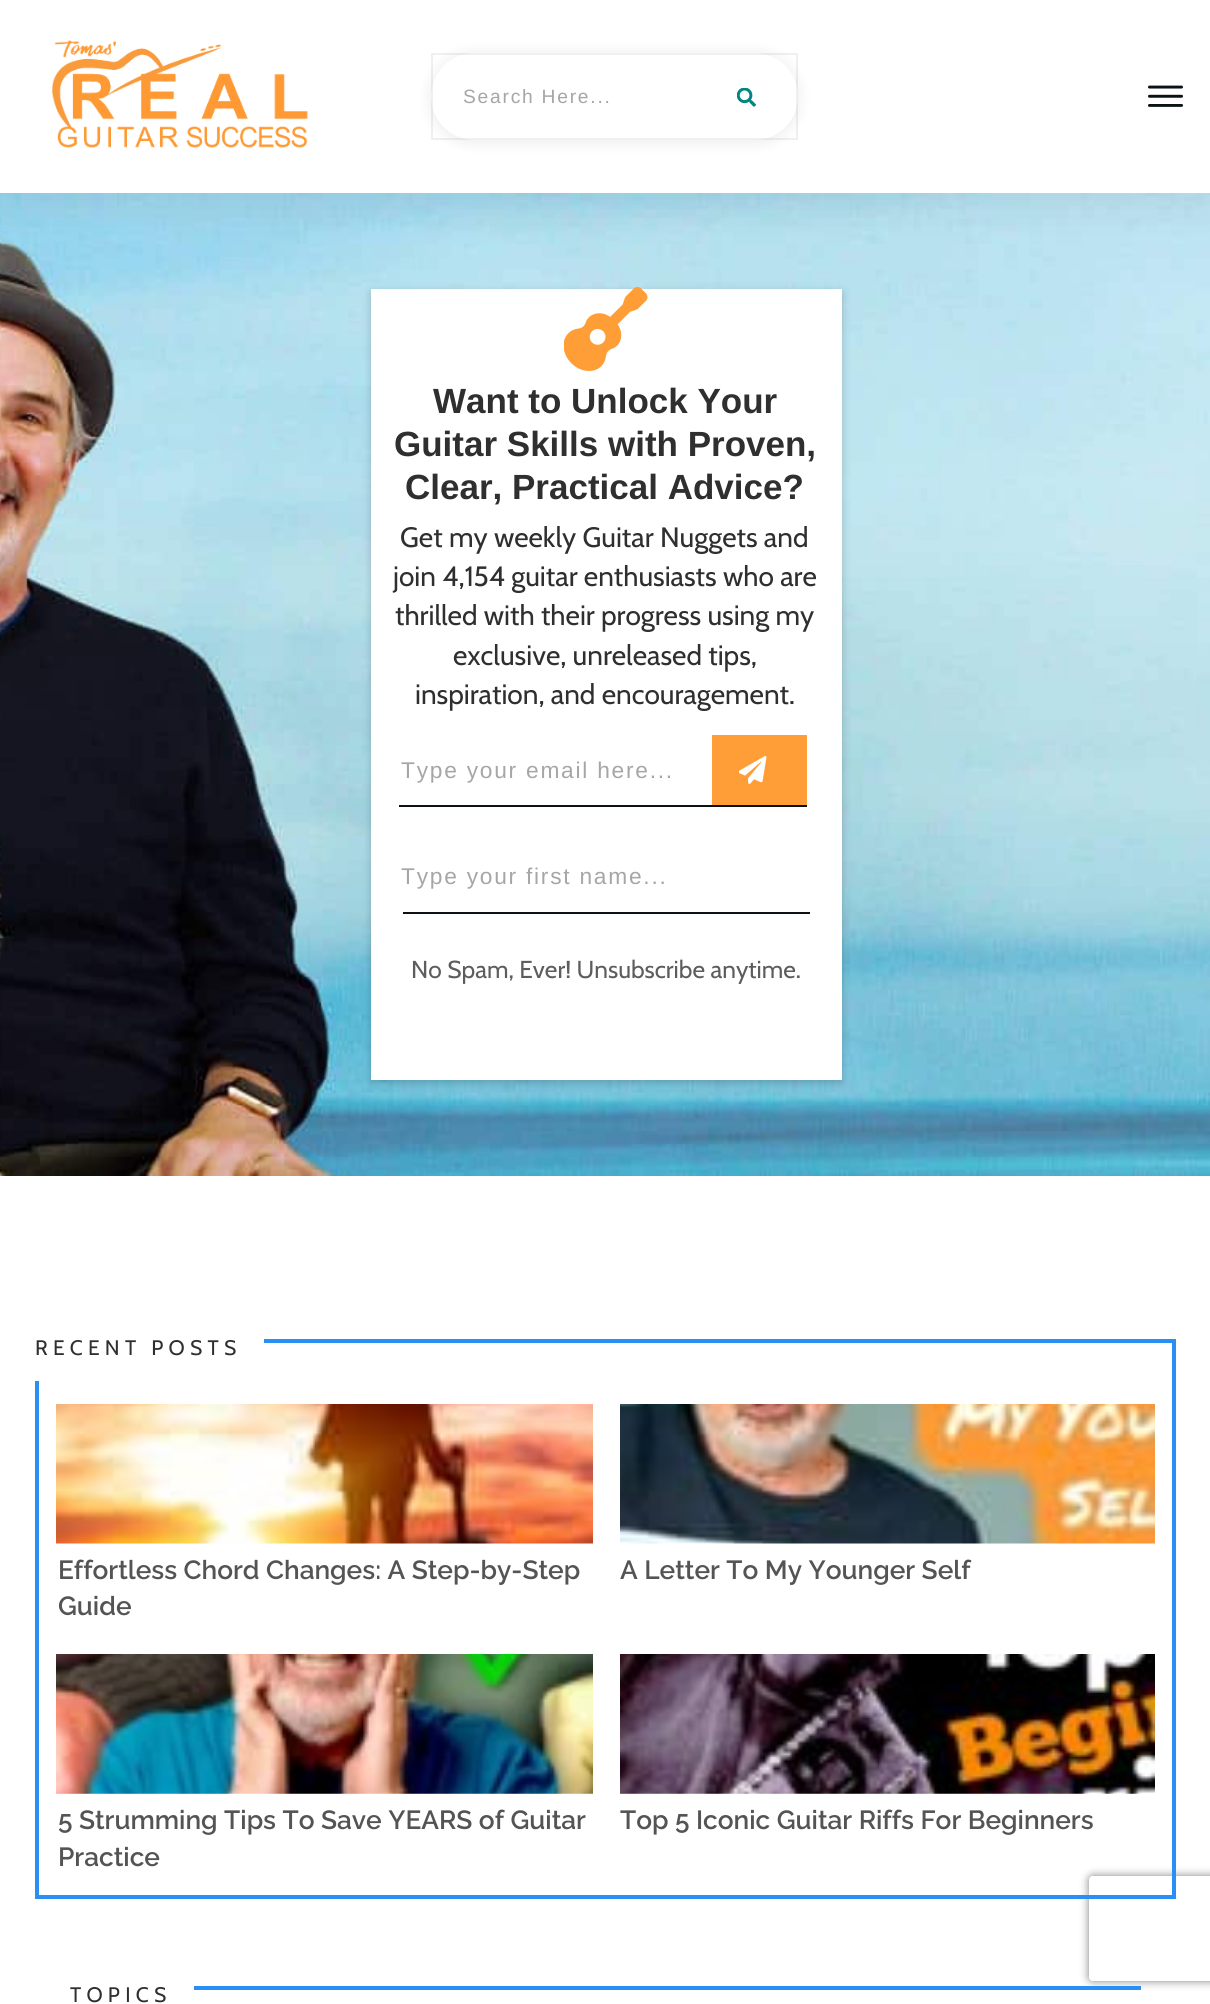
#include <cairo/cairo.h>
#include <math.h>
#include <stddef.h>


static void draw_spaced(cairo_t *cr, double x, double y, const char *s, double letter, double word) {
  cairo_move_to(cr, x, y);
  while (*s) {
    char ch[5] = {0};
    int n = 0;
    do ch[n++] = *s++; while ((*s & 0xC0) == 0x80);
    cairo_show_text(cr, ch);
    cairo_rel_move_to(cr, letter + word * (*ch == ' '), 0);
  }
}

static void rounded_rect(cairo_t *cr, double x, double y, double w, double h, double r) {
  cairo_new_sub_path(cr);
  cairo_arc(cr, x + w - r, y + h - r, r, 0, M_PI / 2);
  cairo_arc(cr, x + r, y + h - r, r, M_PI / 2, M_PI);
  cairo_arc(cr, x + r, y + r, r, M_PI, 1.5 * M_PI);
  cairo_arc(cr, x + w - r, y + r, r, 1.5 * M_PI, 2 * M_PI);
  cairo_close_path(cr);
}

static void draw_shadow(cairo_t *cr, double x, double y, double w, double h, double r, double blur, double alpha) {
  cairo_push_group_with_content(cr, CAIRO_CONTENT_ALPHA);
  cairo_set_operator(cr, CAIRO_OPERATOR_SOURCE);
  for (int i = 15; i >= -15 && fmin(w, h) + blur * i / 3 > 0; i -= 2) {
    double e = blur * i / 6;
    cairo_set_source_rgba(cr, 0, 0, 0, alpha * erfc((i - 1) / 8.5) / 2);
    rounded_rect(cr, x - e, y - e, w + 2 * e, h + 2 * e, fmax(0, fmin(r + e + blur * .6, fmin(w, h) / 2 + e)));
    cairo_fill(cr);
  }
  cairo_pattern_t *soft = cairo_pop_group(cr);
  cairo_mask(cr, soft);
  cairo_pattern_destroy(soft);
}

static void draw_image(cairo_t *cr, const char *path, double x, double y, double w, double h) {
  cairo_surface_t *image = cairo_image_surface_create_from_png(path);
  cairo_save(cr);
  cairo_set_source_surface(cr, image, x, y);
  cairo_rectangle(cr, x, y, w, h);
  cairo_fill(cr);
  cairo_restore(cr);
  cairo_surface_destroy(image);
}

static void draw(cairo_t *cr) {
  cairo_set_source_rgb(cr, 1, 1, 1);
  cairo_paint(cr);
  draw_image(cr, "images/4.png", 0, 193, 1210, 983);
  cairo_set_source_rgb(cr, 0, 0, 0);
  draw_shadow(cr, 0, 4, 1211, 192, 0, 26, 0.08);
  cairo_set_source_rgb(cr, 1, 1, 1);
  cairo_rectangle(cr, 0, 0, 1210, 193);
  cairo_fill(cr);
  draw_image(cr, "images/1.png", 51, 40, 257, 108);
  cairo_set_source_rgb(cr, 0, 0, 0);
  draw_shadow(cr, 431, 54, 367, 88, 44, 8, 0.08);
  cairo_set_source_rgb(cr, 1, 1, 1);
  rounded_rect(cr, 431, 53, 367, 87, 43.5);
  cairo_fill(cr);
  cairo_rectangle(cr, 432, 54, 365, 85);
  cairo_set_source_rgba(cr, 0, 0, 0, 0.06);
  cairo_stroke(cr);
  draw_image(cr, "images/2.png", 737, 88, 19, 19);
  draw_image(cr, "images/3.png", 1148, 85, 35, 22);
  cairo_set_source_rgb(cr, 0, 0, 0);
  draw_shadow(cr, 371, 292, 471, 791, 0, 4.5, 0.2);
  cairo_set_source_rgb(cr, 1, 1, 1);
  cairo_rectangle(cr, 371, 289, 471, 791);
  cairo_fill(cr);
  draw_image(cr, "images/5.png", 564, 287, 84, 84);
  cairo_set_source_rgb(cr, 12 / 255.0, 17 / 255.0, 21 / 255.0);
  cairo_rectangle(cr, 399, 805, 408, 2);
  cairo_fill(cr);
  cairo_set_source_rgb(cr, 1, 158 / 255.0, 55 / 255.0);
  cairo_rectangle(cr, 712, 735, 95, 70);
  cairo_fill(cr);
  draw_image(cr, "images/6.png", 739, 756, 28, 28);
  cairo_set_source_rgb(cr, 12 / 255.0, 17 / 255.0, 21 / 255.0);
  cairo_rectangle(cr, 403, 912, 407, 2);
  cairo_fill(cr);
  cairo_save(cr);
  cairo_set_fill_rule(cr, CAIRO_FILL_RULE_EVEN_ODD);
  cairo_new_path(cr);
  cairo_move_to(cr, 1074, 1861);
  cairo_line_to(cr, 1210, 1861);
  cairo_line_to(cr, 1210, 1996);
  cairo_line_to(cr, 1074, 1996);
  cairo_close_path(cr);
  cairo_move_to(cr, 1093, 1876);
  cairo_line_to(cr, 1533, 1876);
  cairo_curve_to(cr, 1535, 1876, 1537, 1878, 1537, 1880);
  cairo_line_to(cr, 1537, 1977);
  cairo_curve_to(cr, 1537, 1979, 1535, 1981, 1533, 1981);
  cairo_line_to(cr, 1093, 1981);
  cairo_curve_to(cr, 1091, 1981, 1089, 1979, 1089, 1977);
  cairo_line_to(cr, 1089, 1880);
  cairo_curve_to(cr, 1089, 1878, 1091, 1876, 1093, 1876);
  cairo_close_path(cr);
  cairo_clip(cr);
  cairo_set_source_rgb(cr, 128 / 255.0, 128 / 255.0, 128 / 255.0);
  draw_shadow(cr, 1089, 1876, 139, 105, 4, 4.5, 1);
  cairo_restore(cr);
  cairo_rectangle(cr, 37, 1341, 1137, 556);
  cairo_set_source_rgb(cr, 42 / 255.0, 143 / 255.0, 244 / 255.0);
  cairo_set_line_width(cr, 4);
  cairo_stroke(cr);
  cairo_set_source_rgb(cr, 1, 1, 1);
  cairo_rectangle(cr, 35, 1339, 229, 42);
  cairo_fill(cr);
  draw_image(cr, "images/7.png", 56, 1404, 537, 140);
  draw_image(cr, "images/8.png", 620, 1404, 535, 140);
  draw_image(cr, "images/9.png", 56, 1654, 537, 140);
  draw_image(cr, "images/10.png", 620, 1654, 535, 140);
  cairo_set_source_rgb(cr, 42 / 255.0, 143 / 255.0, 244 / 255.0);
  cairo_rectangle(cr, 194, 1986, 947, 4);
  cairo_fill(cr);
  cairo_select_font_face(cr, "Liberation Sans", CAIRO_FONT_SLANT_NORMAL, CAIRO_FONT_WEIGHT_NORMAL);
  cairo_set_font_size(cr, 19.25);
  cairo_set_source_rgb(cr, 166 / 255.0, 166 / 255.0, 166 / 255.0);
  draw_spaced(cr, 463, 103, "Search Here...", 1.75, 0);
  cairo_select_font_face(cr, "Liberation Sans", CAIRO_FONT_SLANT_NORMAL, CAIRO_FONT_WEIGHT_BOLD);
  cairo_set_font_size(cr, 35);
  cairo_set_source_rgb(cr, 47 / 255.0, 47 / 255.0, 47 / 255.0);
  cairo_move_to(cr, 433, 413);
  cairo_show_text(cr, "Want to Unlock Your");
  cairo_move_to(cr, 394, 456);
  cairo_show_text(cr, "Guitar Skills with Proven,");
  cairo_move_to(cr, 405, 499);
  cairo_show_text(cr, "Clear, Practical Advice?");
  cairo_select_font_face(cr, "Cabin", CAIRO_FONT_SLANT_NORMAL, CAIRO_FONT_WEIGHT_NORMAL);
  cairo_set_font_size(cr, 28);
  cairo_move_to(cr, 400, 547);
  cairo_show_text(cr, "Get my weekly Guitar Nuggets and");
  cairo_move_to(cr, 393, 586);
  cairo_show_text(cr, "join 4,154 guitar enthusiasts who are");
  cairo_move_to(cr, 395, 625);
  cairo_show_text(cr, "thrilled with their progress using my");
  cairo_move_to(cr, 453, 665);
  cairo_show_text(cr, "exclusive, unreleased tips,");
  cairo_move_to(cr, 415, 704);
  cairo_show_text(cr, "inspiration, and encouragement.");
  cairo_select_font_face(cr, "Liberation Sans", CAIRO_FONT_SLANT_NORMAL, CAIRO_FONT_WEIGHT_NORMAL);
  cairo_set_font_size(cr, 22.75);
  cairo_set_source_rgb(cr, 166 / 255.0, 166 / 255.0, 166 / 255.0);
  draw_spaced(cr, 401, 778, "Type your email here...", 1.75, 0);
  draw_spaced(cr, 401, 884, "Type your first name...", 1.75, 0);
  cairo_select_font_face(cr, "Cabin", CAIRO_FONT_SLANT_NORMAL, CAIRO_FONT_WEIGHT_NORMAL);
  cairo_set_font_size(cr, 24.5);
  cairo_set_source_rgb(cr, 93 / 255.0, 93 / 255.0, 93 / 255.0);
  cairo_move_to(cr, 411, 978);
  cairo_show_text(cr, "No Spam, Ever! Unsubscribe anytime.");
  cairo_set_font_size(cr, 21);
  cairo_set_source_rgb(cr, 47 / 255.0, 47 / 255.0, 47 / 255.0);
  draw_spaced(cr, 35, 1355, "RECENT POSTS", 5.25, 0);
  cairo_select_font_face(cr, "Raleway SemiBold", CAIRO_FONT_SLANT_NORMAL, CAIRO_FONT_WEIGHT_NORMAL);
  cairo_set_font_size(cr, 26.25);
  cairo_set_source_rgb(cr, 84 / 255.0, 84 / 255.0, 84 / 255.0);
  cairo_move_to(cr, 58, 1579);
  cairo_show_text(cr, "Effortless Chord Changes: A Step-by-Step");
  cairo_move_to(cr, 58, 1615);
  cairo_show_text(cr, "Guide");
  cairo_move_to(cr, 620, 1579);
  cairo_show_text(cr, "A Letter To My Younger Self");
  cairo_move_to(cr, 58, 1829);
  cairo_show_text(cr, "5 Strumming Tips To Save YEARS of Guitar");
  cairo_move_to(cr, 58, 1866);
  cairo_show_text(cr, "Practice");
  cairo_move_to(cr, 620, 1829);
  cairo_show_text(cr, "Top 5 Iconic Guitar Riffs For Beginners");
  cairo_select_font_face(cr, "Cabin", CAIRO_FONT_SLANT_NORMAL, CAIRO_FONT_WEIGHT_NORMAL);
  cairo_set_font_size(cr, 21);
  cairo_set_source_rgb(cr, 47 / 255.0, 47 / 255.0, 47 / 255.0);
  draw_spaced(cr, 70, 2002, "TOPICS", 5.25, 0);
}

int main(void) {
  cairo_surface_t *surface = cairo_image_surface_create(CAIRO_FORMAT_RGB24, 1210, 2004);
  cairo_t *cr = cairo_create(surface);
  cairo_font_options_t *options = cairo_font_options_create();
  cairo_font_options_set_hint_metrics(options, CAIRO_HINT_METRICS_OFF);
  cairo_font_options_set_hint_style(options, CAIRO_HINT_STYLE_NONE);
  cairo_set_font_options(cr, options);
  cairo_set_miter_limit(cr, 4);
  draw(cr);
  cairo_surface_write_to_png(surface, "out.png");
  cairo_font_options_destroy(options);
  cairo_destroy(cr);
  cairo_surface_destroy(surface);
  return 0;
}
